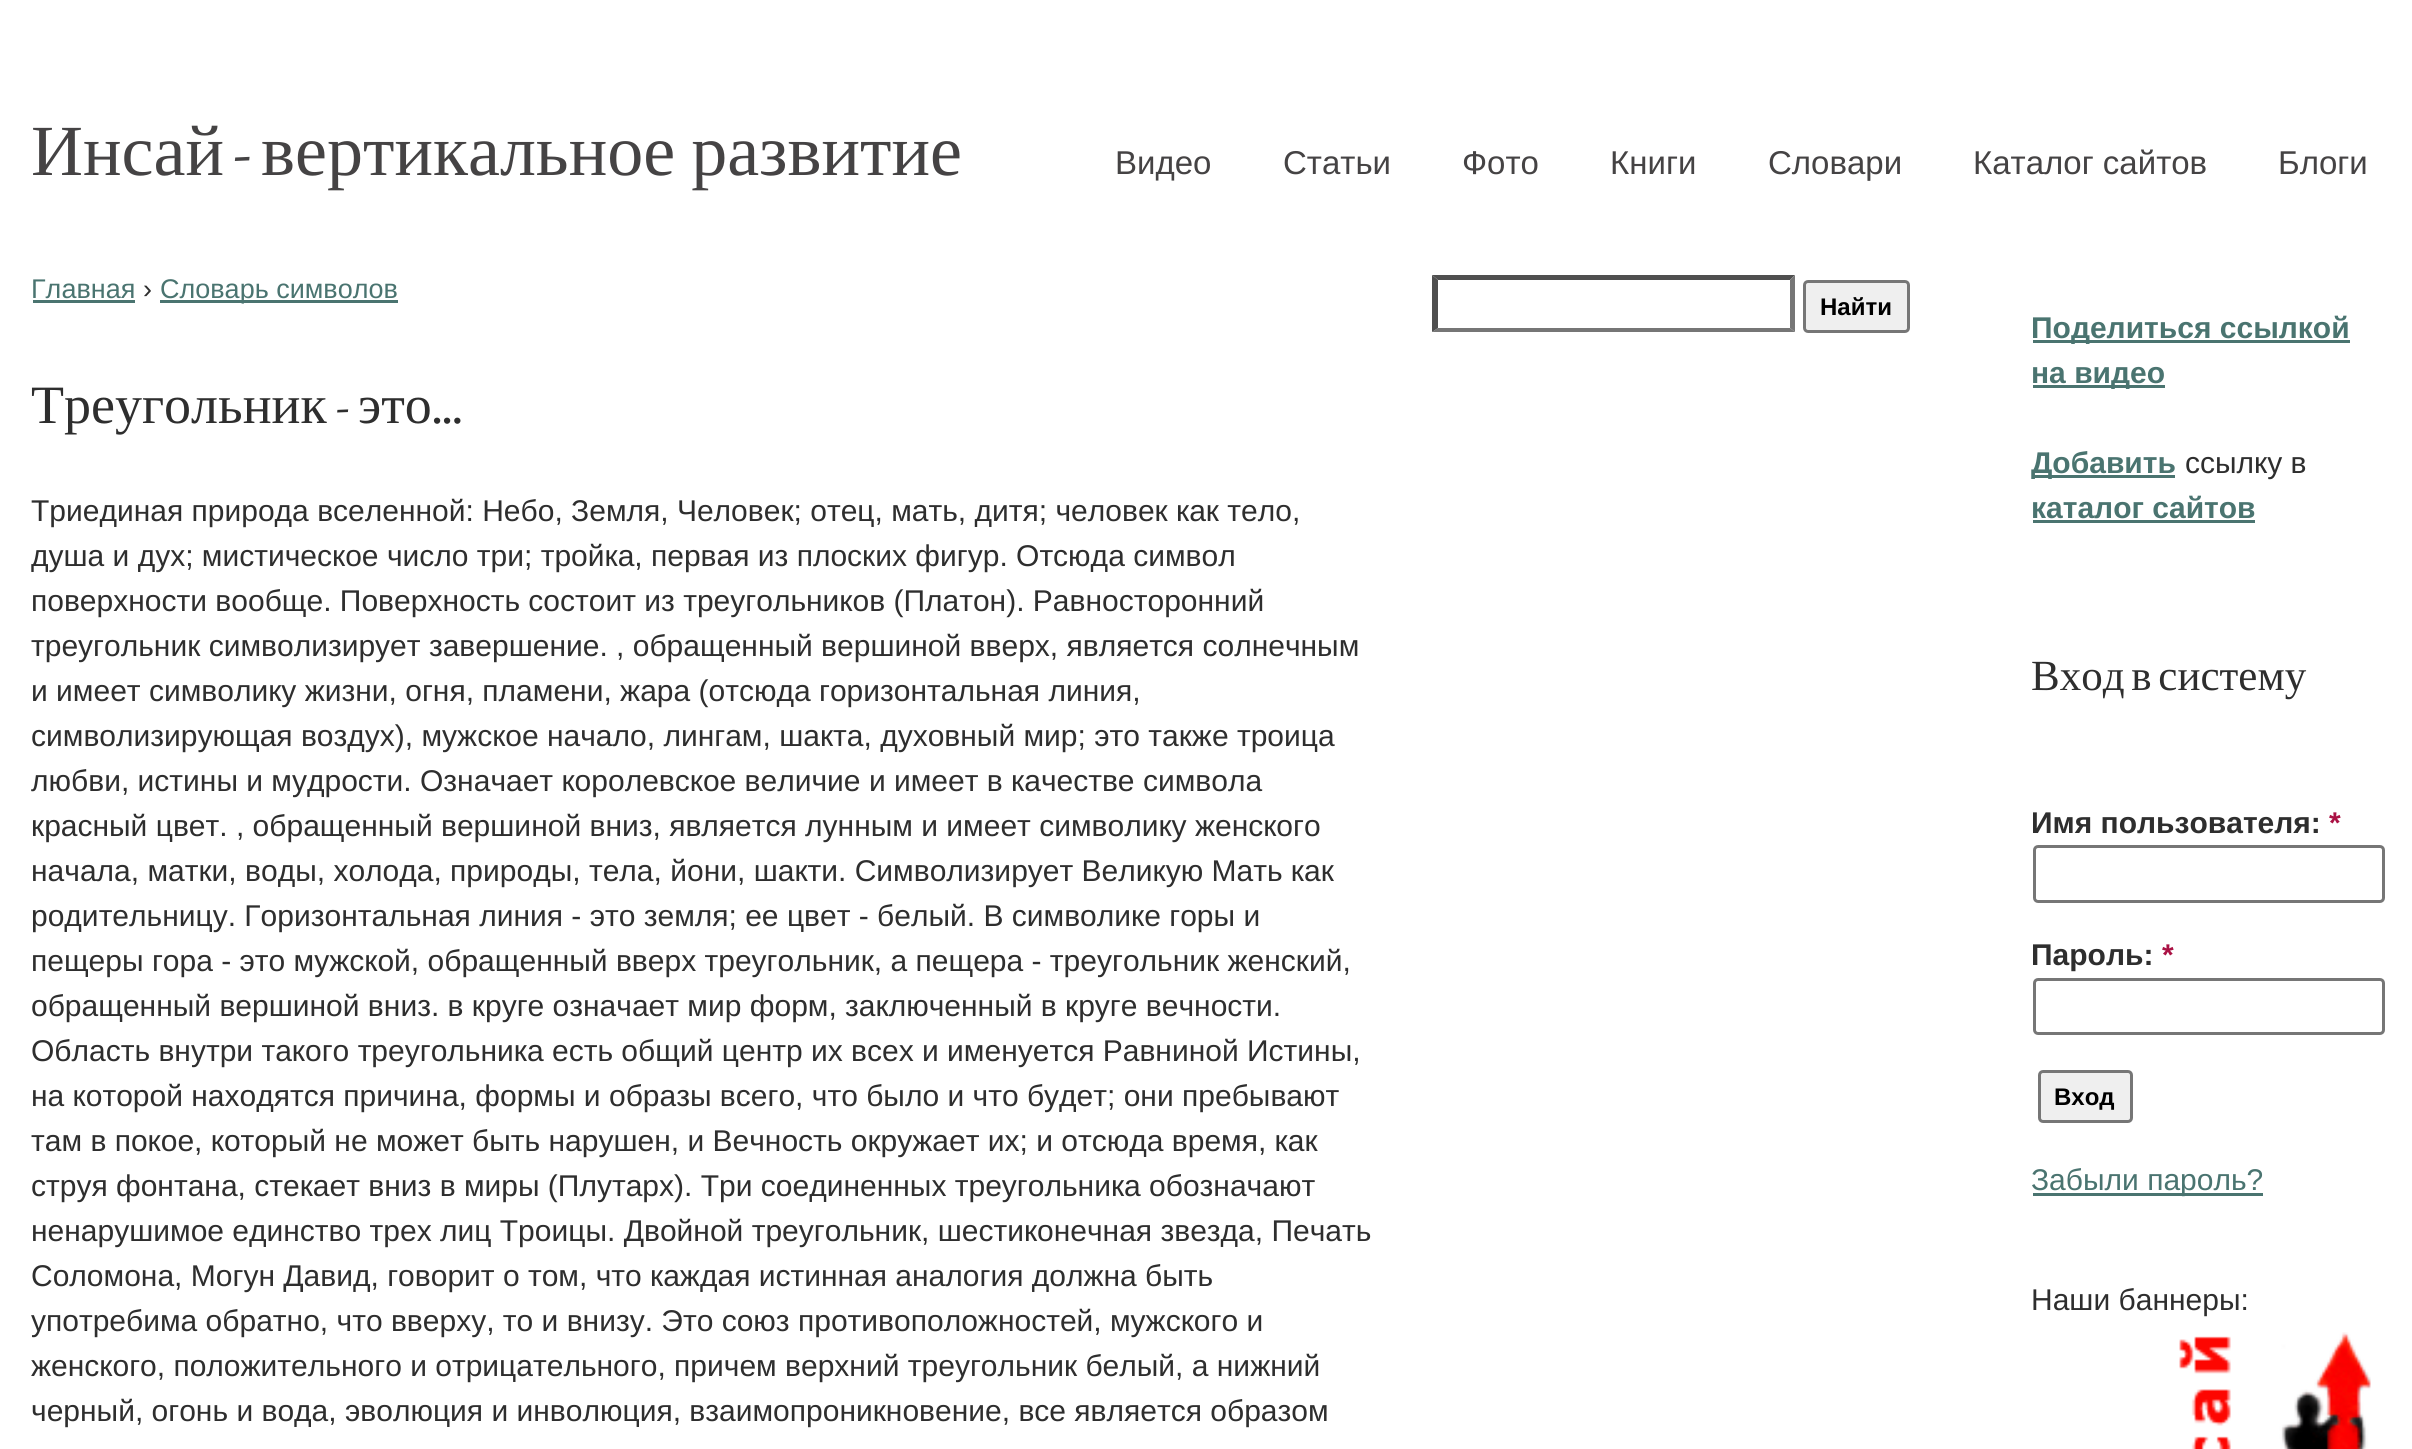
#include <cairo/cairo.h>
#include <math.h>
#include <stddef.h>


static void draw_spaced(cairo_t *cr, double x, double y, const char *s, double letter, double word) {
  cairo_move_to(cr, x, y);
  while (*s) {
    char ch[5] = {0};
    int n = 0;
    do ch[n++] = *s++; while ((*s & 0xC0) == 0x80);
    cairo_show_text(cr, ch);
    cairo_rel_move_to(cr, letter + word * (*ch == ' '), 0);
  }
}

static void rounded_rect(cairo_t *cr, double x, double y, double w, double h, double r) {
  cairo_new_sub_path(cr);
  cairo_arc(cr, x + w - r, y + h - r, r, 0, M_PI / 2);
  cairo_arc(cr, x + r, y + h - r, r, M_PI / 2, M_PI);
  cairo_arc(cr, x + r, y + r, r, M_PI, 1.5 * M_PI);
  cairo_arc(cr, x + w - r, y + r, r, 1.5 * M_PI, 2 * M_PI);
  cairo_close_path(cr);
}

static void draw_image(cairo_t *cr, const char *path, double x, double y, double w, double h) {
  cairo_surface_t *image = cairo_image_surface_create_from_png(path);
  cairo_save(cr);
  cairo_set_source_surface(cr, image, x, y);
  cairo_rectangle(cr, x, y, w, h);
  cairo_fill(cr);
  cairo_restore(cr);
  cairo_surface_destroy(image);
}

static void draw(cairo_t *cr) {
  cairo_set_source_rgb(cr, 1, 1, 1);
  cairo_paint(cr);
  cairo_set_source_rgb(cr, 74 / 255.0, 116 / 255.0, 112 / 255.0);
  cairo_rectangle(cr, 33, 300, 102, 3);
  cairo_fill(cr);
  cairo_rectangle(cr, 160, 300, 238, 3);
  cairo_fill(cr);
  cairo_set_source_rgb(cr, 79 / 255.0, 79 / 255.0, 79 / 255.0);
  cairo_new_path(cr);
  cairo_move_to(cr, 1432, 275);
  cairo_line_to(cr, 1795, 275);
  cairo_line_to(cr, 1790, 280);
  cairo_line_to(cr, 1438, 280);
  cairo_close_path(cr);
  cairo_fill(cr);
  cairo_set_source_rgb(cr, 118 / 255.0, 118 / 255.0, 118 / 255.0);
  cairo_new_path(cr);
  cairo_move_to(cr, 1795, 275);
  cairo_line_to(cr, 1795, 332);
  cairo_line_to(cr, 1790, 328);
  cairo_line_to(cr, 1790, 280);
  cairo_close_path(cr);
  cairo_fill(cr);
  cairo_new_path(cr);
  cairo_move_to(cr, 1795, 332);
  cairo_line_to(cr, 1432, 332);
  cairo_line_to(cr, 1438, 328);
  cairo_line_to(cr, 1790, 328);
  cairo_close_path(cr);
  cairo_fill(cr);
  cairo_set_source_rgb(cr, 79 / 255.0, 79 / 255.0, 79 / 255.0);
  cairo_new_path(cr);
  cairo_move_to(cr, 1432, 332);
  cairo_line_to(cr, 1432, 275);
  cairo_line_to(cr, 1438, 280);
  cairo_line_to(cr, 1438, 328);
  cairo_close_path(cr);
  cairo_fill(cr);
  cairo_set_source_rgb(cr, 239 / 255.0, 239 / 255.0, 239 / 255.0);
  rounded_rect(cr, 1804.5, 281.5, 104, 50, 3.5);
  cairo_fill_preserve(cr);
  cairo_set_source_rgb(cr, 118 / 255.0, 118 / 255.0, 118 / 255.0);
  cairo_set_line_width(cr, 3);
  cairo_stroke(cr);
  cairo_set_source_rgb(cr, 74 / 255.0, 116 / 255.0, 112 / 255.0);
  cairo_rectangle(cr, 2033, 340, 317, 3);
  cairo_fill(cr);
  cairo_rectangle(cr, 2033, 385, 132, 3);
  cairo_fill(cr);
  cairo_rectangle(cr, 2033, 475, 142, 3);
  cairo_fill(cr);
  cairo_rectangle(cr, 2033, 520, 222, 3);
  cairo_fill(cr);
  rounded_rect(cr, 2034.5, 846.5, 349, 55, 3.5);
  cairo_set_source_rgb(cr, 118 / 255.0, 118 / 255.0, 118 / 255.0);
  cairo_stroke(cr);
  rounded_rect(cr, 2034.5, 979.5, 349, 54, 3.5);
  cairo_stroke(cr);
  cairo_set_source_rgb(cr, 239 / 255.0, 239 / 255.0, 239 / 255.0);
  rounded_rect(cr, 2039.5, 1071.5, 92, 50, 3.5);
  cairo_fill_preserve(cr);
  cairo_set_source_rgb(cr, 118 / 255.0, 118 / 255.0, 118 / 255.0);
  cairo_stroke(cr);
  cairo_set_source_rgb(cr, 74 / 255.0, 116 / 255.0, 112 / 255.0);
  cairo_rectangle(cr, 2033, 1193, 230, 3);
  cairo_fill(cr);
  draw_image(cr, "images/1.png", 2179, 1332, 192, 117);
  cairo_select_font_face(cr, "Liberation Serif", CAIRO_FONT_SLANT_NORMAL, CAIRO_FONT_WEIGHT_NORMAL);
  cairo_set_font_size(cr, 72);
  cairo_set_source_rgb(cr, 69 / 255.0, 67 / 255.0, 68 / 255.0);
  cairo_move_to(cr, 31, 175);
  cairo_show_text(cr, "Инсай");
  cairo_select_font_face(cr, "Neuton", CAIRO_FONT_SLANT_NORMAL, CAIRO_FONT_WEIGHT_NORMAL);
  cairo_move_to(cr, 232, 175);
  cairo_show_text(cr, "-");
  cairo_select_font_face(cr, "Liberation Serif", CAIRO_FONT_SLANT_NORMAL, CAIRO_FONT_WEIGHT_NORMAL);
  draw_spaced(cr, 261, 175, "вертикальное развитие", 0, -2);
  cairo_select_font_face(cr, "Liberation Sans", CAIRO_FONT_SLANT_NORMAL, CAIRO_FONT_WEIGHT_NORMAL);
  cairo_set_font_size(cr, 33);
  cairo_move_to(cr, 1115, 174);
  cairo_show_text(cr, "Видео");
  cairo_move_to(cr, 1283, 174);
  cairo_show_text(cr, "Статьи");
  cairo_move_to(cr, 1462, 174);
  cairo_show_text(cr, "Фото");
  cairo_move_to(cr, 1610, 174);
  cairo_show_text(cr, "Книги");
  cairo_move_to(cr, 1768, 174);
  cairo_show_text(cr, "Словари");
  cairo_move_to(cr, 1973, 174);
  cairo_show_text(cr, "Каталог сайтов");
  cairo_move_to(cr, 2278, 174);
  cairo_show_text(cr, "Блоги");
  cairo_set_font_size(cr, 27);
  cairo_set_source_rgb(cr, 74 / 255.0, 116 / 255.0, 112 / 255.0);
  cairo_move_to(cr, 31, 298);
  cairo_show_text(cr, "Главная");
  cairo_set_source_rgb(cr, 46 / 255.0, 46 / 255.0, 46 / 255.0);
  cairo_move_to(cr, 143, 298);
  cairo_show_text(cr, "›");
  cairo_set_source_rgb(cr, 74 / 255.0, 116 / 255.0, 112 / 255.0);
  cairo_move_to(cr, 160, 298);
  cairo_show_text(cr, "Словарь символов");
  cairo_select_font_face(cr, "Liberation Serif", CAIRO_FONT_SLANT_NORMAL, CAIRO_FONT_WEIGHT_NORMAL);
  cairo_set_font_size(cr, 54);
  cairo_set_source_rgb(cr, 46 / 255.0, 46 / 255.0, 46 / 255.0);
  cairo_move_to(cr, 31, 423);
  cairo_show_text(cr, "Треугольник");
  cairo_select_font_face(cr, "Neuton", CAIRO_FONT_SLANT_NORMAL, CAIRO_FONT_WEIGHT_NORMAL);
  cairo_move_to(cr, 335, 423);
  cairo_show_text(cr, "-");
  cairo_select_font_face(cr, "Liberation Serif", CAIRO_FONT_SLANT_NORMAL, CAIRO_FONT_WEIGHT_NORMAL);
  cairo_move_to(cr, 358, 423);
  cairo_show_text(cr, "это");
  cairo_select_font_face(cr, "Neuton", CAIRO_FONT_SLANT_NORMAL, CAIRO_FONT_WEIGHT_NORMAL);
  cairo_move_to(cr, 432, 423);
  cairo_show_text(cr, "...");
  cairo_select_font_face(cr, "Liberation Sans", CAIRO_FONT_SLANT_NORMAL, CAIRO_FONT_WEIGHT_NORMAL);
  cairo_set_font_size(cr, 30);
  cairo_move_to(cr, 31, 521);
  cairo_show_text(cr, "Триединая природа вселенной: Небо, Земля, Человек; отец, мать, дитя; человек как тело,");
  cairo_move_to(cr, 31, 566);
  cairo_show_text(cr, "душа и дух; мистическое число три; тройка, первая из плоских фигур. Отсюда символ");
  cairo_move_to(cr, 31, 611);
  cairo_show_text(cr, "поверхности вообще. Поверхность состоит из треугольников (Платон). Равносторонний");
  cairo_move_to(cr, 31, 656);
  cairo_show_text(cr, "треугольник символизирует завершение. , обращенный вершиной вверх, является солнечным");
  cairo_move_to(cr, 31, 701);
  cairo_show_text(cr, "и имеет символику жизни, огня, пламени, жара (отсюда горизонтальная линия,");
  cairo_move_to(cr, 31, 746);
  cairo_show_text(cr, "символизирующая воздух), мужское начало, лингам, шакта, духовный мир; это также троица");
  cairo_move_to(cr, 31, 791);
  cairo_show_text(cr, "любви, истины и мудрости. Означает королевское величие и имеет в качестве символа");
  cairo_move_to(cr, 31, 836);
  cairo_show_text(cr, "красный цвет. , обращенный вершиной вниз, является лунным и имеет символику женского");
  cairo_move_to(cr, 31, 881);
  cairo_show_text(cr, "начала, матки, воды, холода, природы, тела, йони, шакти. Символизирует Великую Мать как");
  cairo_move_to(cr, 31, 926);
  cairo_show_text(cr, "родительницу. Горизонтальная линия - это земля; ее цвет - белый. В символике горы и");
  cairo_move_to(cr, 31, 971);
  cairo_show_text(cr, "пещеры гора - это мужской, обращенный вверх треугольник, а пещера - треугольник женский,");
  cairo_move_to(cr, 31, 1016);
  cairo_show_text(cr, "обращенный вершиной вниз. в круге означает мир форм, заключенный в круге вечности.");
  cairo_move_to(cr, 31, 1061);
  cairo_show_text(cr, "Область внутри такого треугольника есть общий центр их всех и именуется Равниной Истины,");
  cairo_move_to(cr, 31, 1106);
  cairo_show_text(cr, "на которой находятся причина, формы и образы всего, что было и что будет; они пребывают");
  cairo_move_to(cr, 31, 1151);
  cairo_show_text(cr, "там в покое, который не может быть нарушен, и Вечность окружает их; и отсюда время, как");
  cairo_move_to(cr, 31, 1196);
  cairo_show_text(cr, "струя фонтана, стекает вниз в миры (Плутарх). Три соединенных треугольника обозначают");
  cairo_move_to(cr, 31, 1241);
  cairo_show_text(cr, "ненарушимое единство трех лиц Троицы. Двойной треугольник, шестиконечная звезда, Печать");
  cairo_move_to(cr, 31, 1286);
  cairo_show_text(cr, "Соломона, Могун Давид, говорит о том, что каждая истинная аналогия должна быть");
  cairo_move_to(cr, 31, 1331);
  cairo_show_text(cr, "употребима обратно, что вверху, то и внизу. Это союз противоположностей, мужского и");
  cairo_move_to(cr, 31, 1376);
  cairo_show_text(cr, "женского, положительного и отрицательного, причем верхний треугольник белый, а нижний");
  cairo_move_to(cr, 31, 1421);
  cairo_show_text(cr, "черный, огонь и вода, эволюция и инволюция, взаимопроникновение, все является образом");
  cairo_select_font_face(cr, "Liberation Sans", CAIRO_FONT_SLANT_NORMAL, CAIRO_FONT_WEIGHT_BOLD);
  cairo_set_font_size(cr, 24);
  cairo_set_source_rgb(cr, 0, 0, 0);
  cairo_move_to(cr, 1820, 315);
  cairo_show_text(cr, "Найти");
  cairo_set_font_size(cr, 30);
  cairo_set_source_rgb(cr, 74 / 255.0, 116 / 255.0, 112 / 255.0);
  cairo_move_to(cr, 2031, 338);
  cairo_show_text(cr, "Поделиться ссылкой");
  cairo_move_to(cr, 2031, 383);
  cairo_show_text(cr, "на видео");
  cairo_move_to(cr, 2031, 473);
  cairo_show_text(cr, "Добавить");
  cairo_select_font_face(cr, "Liberation Sans", CAIRO_FONT_SLANT_NORMAL, CAIRO_FONT_WEIGHT_NORMAL);
  cairo_set_source_rgb(cr, 46 / 255.0, 46 / 255.0, 46 / 255.0);
  cairo_move_to(cr, 2185, 473);
  cairo_show_text(cr, "ссылку в");
  cairo_select_font_face(cr, "Liberation Sans", CAIRO_FONT_SLANT_NORMAL, CAIRO_FONT_WEIGHT_BOLD);
  cairo_set_source_rgb(cr, 74 / 255.0, 116 / 255.0, 112 / 255.0);
  cairo_move_to(cr, 2031, 518);
  cairo_show_text(cr, "каталог сайтов");
  cairo_select_font_face(cr, "Liberation Serif", CAIRO_FONT_SLANT_NORMAL, CAIRO_FONT_WEIGHT_NORMAL);
  cairo_set_font_size(cr, 43);
  cairo_set_source_rgb(cr, 46 / 255.0, 46 / 255.0, 46 / 255.0);
  draw_spaced(cr, 2031, 690, "Вход в систему", 0, -4);
  cairo_select_font_face(cr, "Liberation Sans", CAIRO_FONT_SLANT_NORMAL, CAIRO_FONT_WEIGHT_BOLD);
  cairo_set_font_size(cr, 30);
  cairo_move_to(cr, 2031, 833);
  cairo_show_text(cr, "Имя пользователя:");
  cairo_set_source_rgb(cr, 170 / 255.0, 17 / 255.0, 68 / 255.0);
  cairo_move_to(cr, 2329, 833);
  cairo_show_text(cr, "*");
  cairo_set_source_rgb(cr, 46 / 255.0, 46 / 255.0, 46 / 255.0);
  cairo_move_to(cr, 2031, 965);
  cairo_show_text(cr, "Пароль:");
  cairo_set_source_rgb(cr, 170 / 255.0, 17 / 255.0, 68 / 255.0);
  cairo_move_to(cr, 2162, 965);
  cairo_show_text(cr, "*");
  cairo_set_font_size(cr, 24);
  cairo_set_source_rgb(cr, 0, 0, 0);
  cairo_move_to(cr, 2054, 1105);
  cairo_show_text(cr, "Вход");
  cairo_select_font_face(cr, "Liberation Sans", CAIRO_FONT_SLANT_NORMAL, CAIRO_FONT_WEIGHT_NORMAL);
  cairo_set_font_size(cr, 30);
  cairo_set_source_rgb(cr, 74 / 255.0, 116 / 255.0, 112 / 255.0);
  cairo_move_to(cr, 2031, 1190);
  cairo_show_text(cr, "Забыли пароль?");
  cairo_set_source_rgb(cr, 46 / 255.0, 46 / 255.0, 46 / 255.0);
  cairo_move_to(cr, 2031, 1310);
  cairo_show_text(cr, "Наши баннеры:");
}

int main(void) {
  cairo_surface_t *surface = cairo_image_surface_create(CAIRO_FORMAT_RGB24, 2412, 1449);
  cairo_t *cr = cairo_create(surface);
  cairo_font_options_t *options = cairo_font_options_create();
  cairo_font_options_set_hint_metrics(options, CAIRO_HINT_METRICS_OFF);
  cairo_font_options_set_hint_style(options, CAIRO_HINT_STYLE_NONE);
  cairo_set_font_options(cr, options);
  cairo_set_miter_limit(cr, 4);
  draw(cr);
  cairo_surface_write_to_png(surface, "out.png");
  cairo_font_options_destroy(options);
  cairo_destroy(cr);
  cairo_surface_destroy(surface);
  return 0;
}
